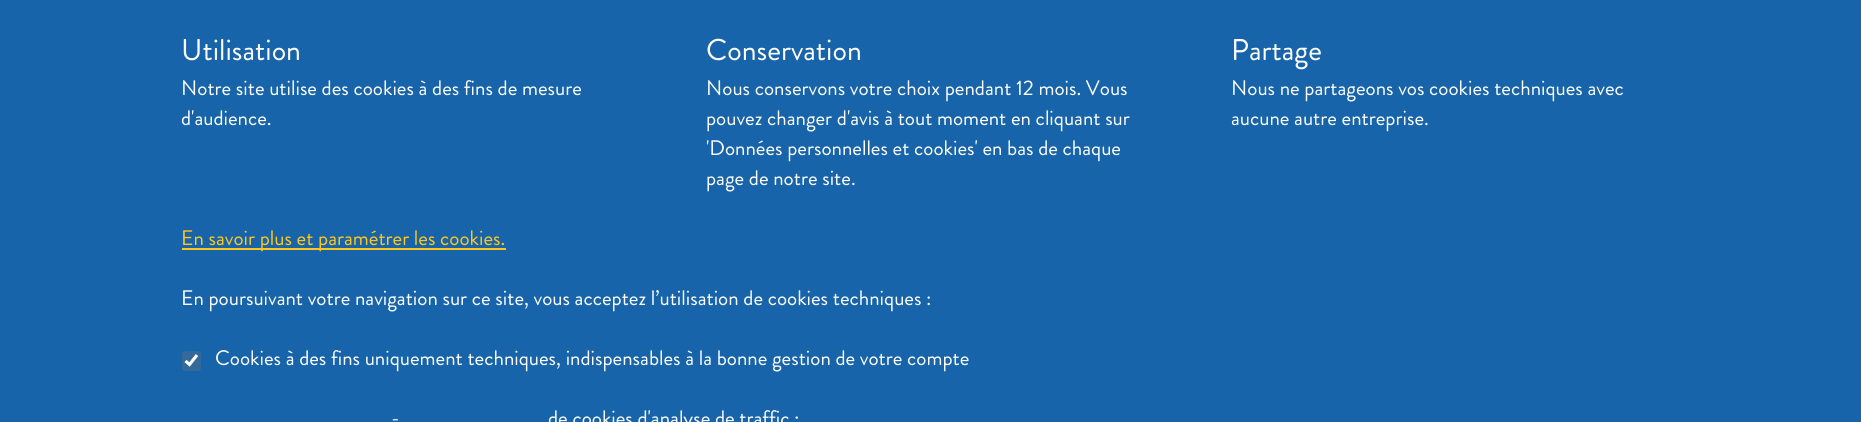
#include <cairo/cairo.h>
#include <math.h>
#include <stddef.h>


static void rounded_rect(cairo_t *cr, double x, double y, double w, double h, double r) {
  cairo_new_sub_path(cr);
  cairo_arc(cr, x + w - r, y + h - r, r, 0, M_PI / 2);
  cairo_arc(cr, x + r, y + h - r, r, M_PI / 2, M_PI);
  cairo_arc(cr, x + r, y + r, r, M_PI, 1.5 * M_PI);
  cairo_arc(cr, x + w - r, y + r, r, 1.5 * M_PI, 2 * M_PI);
  cairo_close_path(cr);
}

static void draw(cairo_t *cr) {
  cairo_set_source_rgb(cr, 23 / 255.0, 100 / 255.0, 170 / 255.0);
  cairo_paint(cr);
  cairo_set_source_rgb(cr, 1, 199 / 255.0, 27 / 255.0);
  cairo_rectangle(cr, 182, 248, 324, 2);
  cairo_fill(cr);
  cairo_set_source_rgb(cr, 52 / 255.0, 105 / 255.0, 154 / 255.0);
  rounded_rect(cr, 182, 351, 19, 20, 3);
  cairo_fill(cr);
  cairo_new_path(cr);
  cairo_move_to(cr, 185.5, 361);
  cairo_line_to(cr, 189.5, 364.5);
  cairo_line_to(cr, 197, 355);
  cairo_set_source_rgb(cr, 1, 1, 1);
  cairo_set_line_width(cr, 3.1);
  cairo_stroke(cr);
  cairo_select_font_face(cr, "Brandon Grotesque", CAIRO_FONT_SLANT_NORMAL, CAIRO_FONT_WEIGHT_NORMAL);
  cairo_set_font_size(cr, 30);
  cairo_move_to(cr, 181, 60);
  cairo_show_text(cr, "Utilisation");
  cairo_set_font_size(cr, 21);
  cairo_move_to(cr, 181, 95);
  cairo_show_text(cr, "Notre site utilise des cookies à des fins de mesure");
  cairo_move_to(cr, 181, 125);
  cairo_show_text(cr, "d'audience.");
  cairo_set_font_size(cr, 30);
  cairo_move_to(cr, 706, 60);
  cairo_show_text(cr, "Conservation");
  cairo_set_font_size(cr, 21);
  cairo_move_to(cr, 706, 95);
  cairo_show_text(cr, "Nous conservons votre choix pendant 12 mois. Vous");
  cairo_move_to(cr, 706, 125);
  cairo_show_text(cr, "pouvez changer d'avis à tout moment en cliquant sur");
  cairo_move_to(cr, 706, 155);
  cairo_show_text(cr, "'Données personnelles et cookies' en bas de chaque");
  cairo_move_to(cr, 706, 185);
  cairo_show_text(cr, "page de notre site.");
  cairo_set_font_size(cr, 30);
  cairo_move_to(cr, 1231, 60);
  cairo_show_text(cr, "Partage");
  cairo_set_font_size(cr, 21);
  cairo_move_to(cr, 1231, 95);
  cairo_show_text(cr, "Nous ne partageons vos cookies techniques avec");
  cairo_move_to(cr, 1231, 125);
  cairo_show_text(cr, "aucune autre entreprise.");
  cairo_set_source_rgb(cr, 1, 199 / 255.0, 27 / 255.0);
  cairo_move_to(cr, 181, 245);
  cairo_show_text(cr, "En savoir plus et paramétrer les cookies.");
  cairo_set_source_rgb(cr, 1, 1, 1);
  cairo_move_to(cr, 181, 305);
  cairo_show_text(cr, "En poursuivant votre navigation sur ce site, vous acceptez l’utilisation de cookies techniques :");
  cairo_move_to(cr, 215, 365);
  cairo_show_text(cr, "Cookies à des fins uniquement techniques, indispensables à la bonne gestion de votre compte");
  cairo_move_to(cr, 391, 425);
  cairo_show_text(cr, "-");
  cairo_move_to(cr, 548, 425);
  cairo_show_text(cr, "de cookies d'analyse de traffic :");
}

int main(void) {
  cairo_surface_t *surface = cairo_image_surface_create(CAIRO_FORMAT_RGB24, 1861, 422);
  cairo_t *cr = cairo_create(surface);
  cairo_font_options_t *options = cairo_font_options_create();
  cairo_font_options_set_hint_metrics(options, CAIRO_HINT_METRICS_OFF);
  cairo_font_options_set_hint_style(options, CAIRO_HINT_STYLE_NONE);
  cairo_set_font_options(cr, options);
  cairo_set_miter_limit(cr, 4);
  draw(cr);
  cairo_surface_write_to_png(surface, "out.png");
  cairo_font_options_destroy(options);
  cairo_destroy(cr);
  cairo_surface_destroy(surface);
  return 0;
}
